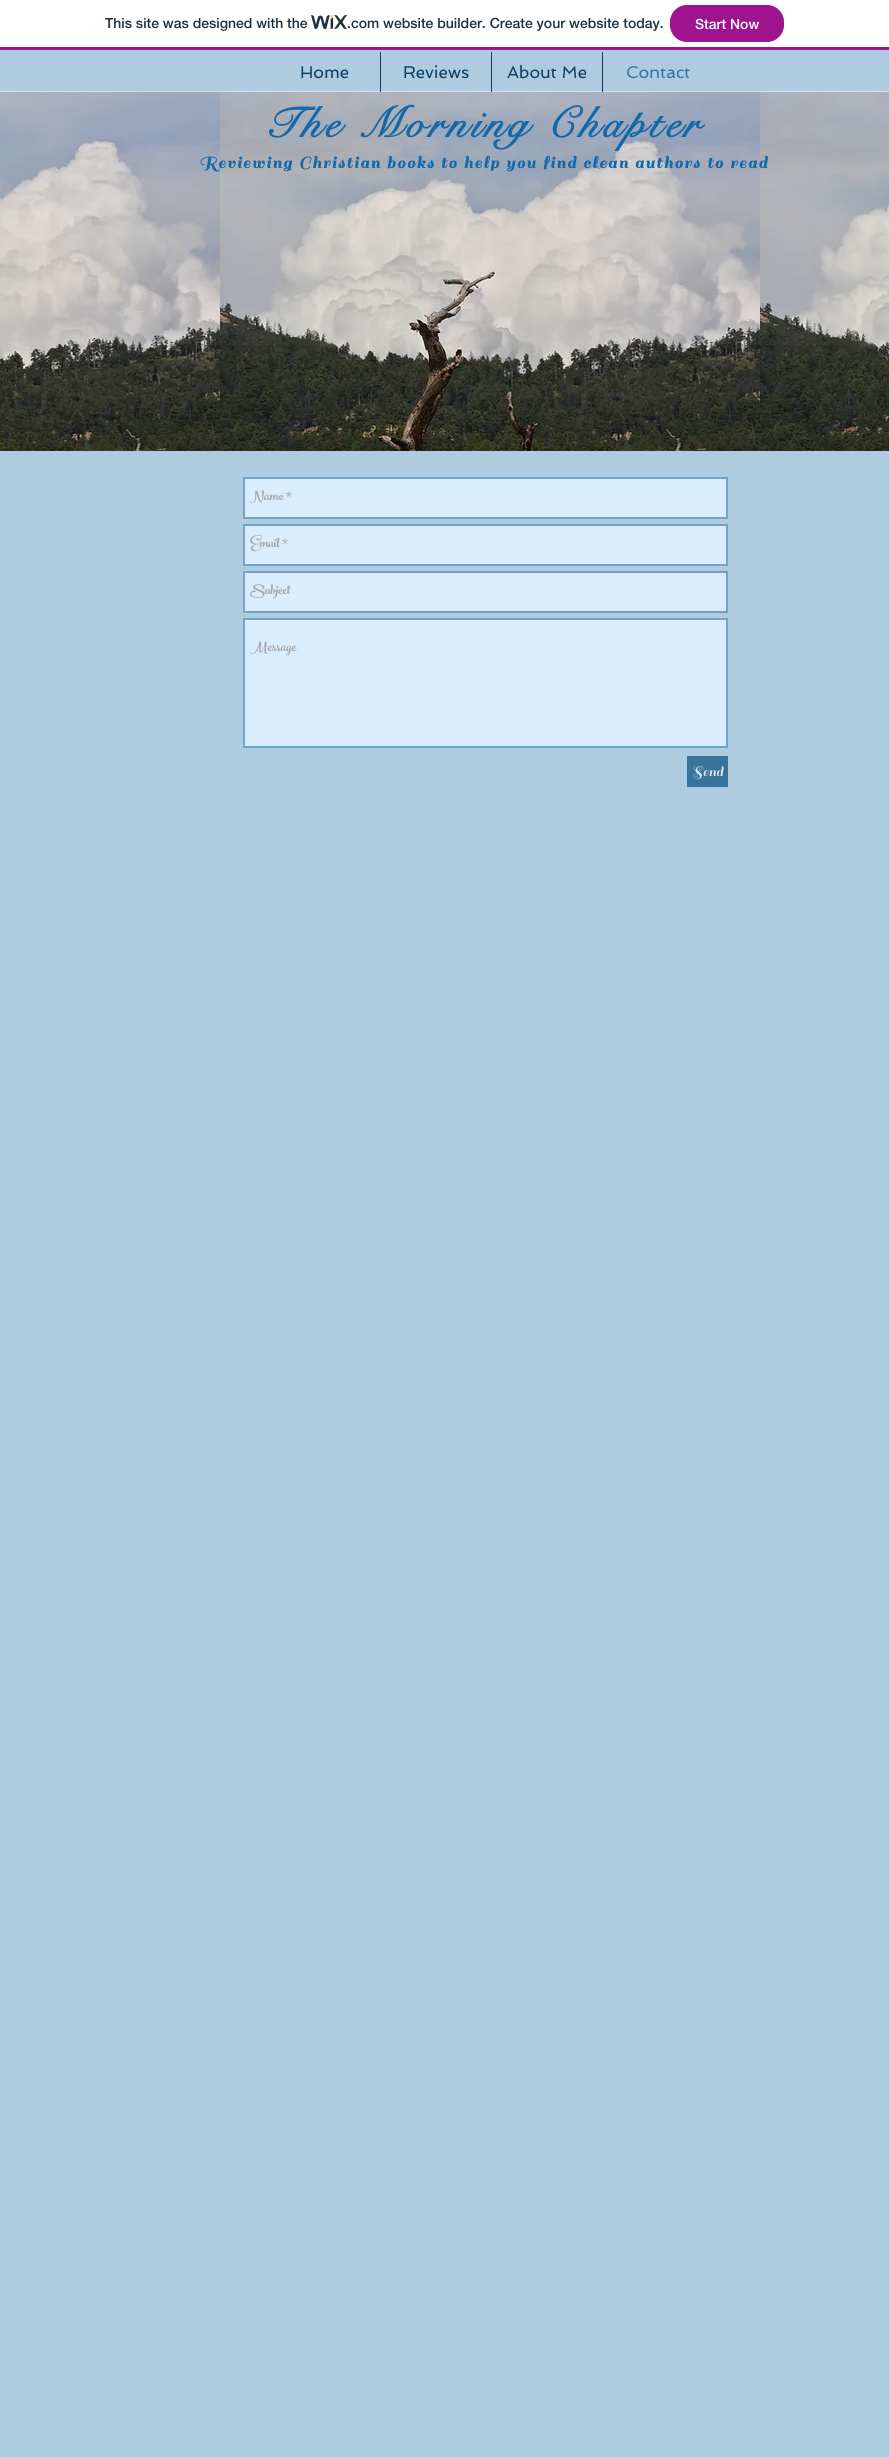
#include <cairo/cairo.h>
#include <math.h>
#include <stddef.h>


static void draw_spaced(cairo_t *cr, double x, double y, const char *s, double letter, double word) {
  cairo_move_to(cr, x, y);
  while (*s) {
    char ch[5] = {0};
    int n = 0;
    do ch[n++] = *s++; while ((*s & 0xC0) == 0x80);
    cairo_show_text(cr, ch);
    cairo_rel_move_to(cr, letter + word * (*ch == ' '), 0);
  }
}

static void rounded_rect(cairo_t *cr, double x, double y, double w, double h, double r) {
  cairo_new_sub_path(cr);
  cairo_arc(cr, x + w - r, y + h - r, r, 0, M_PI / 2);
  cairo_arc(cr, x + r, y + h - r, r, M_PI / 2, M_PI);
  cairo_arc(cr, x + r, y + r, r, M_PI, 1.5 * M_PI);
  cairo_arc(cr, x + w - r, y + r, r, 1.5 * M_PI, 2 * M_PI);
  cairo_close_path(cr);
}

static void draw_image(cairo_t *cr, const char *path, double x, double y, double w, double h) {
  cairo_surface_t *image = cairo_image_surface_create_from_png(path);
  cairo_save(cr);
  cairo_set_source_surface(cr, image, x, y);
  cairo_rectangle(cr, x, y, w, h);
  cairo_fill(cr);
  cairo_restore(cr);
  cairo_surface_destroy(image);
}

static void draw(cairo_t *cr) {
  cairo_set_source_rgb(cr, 1, 1, 1);
  cairo_paint(cr);
  cairo_set_source_rgb(cr, 160 / 255.0, 19 / 255.0, 142 / 255.0);
  cairo_rectangle(cr, 0, 47, 889, 3);
  cairo_fill(cr);
  draw_image(cr, "images/1.png", 311, 15, 36, 15);
  rounded_rect(cr, 670.5, 5.5, 113, 36, 16.5);
  cairo_fill_preserve(cr);
  cairo_set_line_width(cr, 1);
  cairo_stroke(cr);
  cairo_set_source_rgb(cr, 175 / 255.0, 203 / 255.0, 224 / 255.0);
  cairo_rectangle(cr, 0, 50, 889, 2407);
  cairo_fill(cr);
  draw_image(cr, "images/2.png", 0, 91, 889, 360);
  draw_image(cr, "images/3.png", 0, 91, 889, 254);
  cairo_set_source_rgba(cr, 1, 1, 1, 0.59);
  cairo_rectangle(cr, 0, 91, 889, 1);
  cairo_fill(cr);
  cairo_set_source_rgb(cr, 12 / 255.0, 60 / 255.0, 96 / 255.0);
  cairo_rectangle(cr, 380, 52, 1, 40);
  cairo_fill(cr);
  cairo_rectangle(cr, 491, 52, 1, 40);
  cairo_fill(cr);
  cairo_rectangle(cr, 602, 52, 1, 40);
  cairo_fill(cr);
  cairo_set_source_rgb(cr, 218 / 255.0, 237 / 255.0, 1);
  cairo_rectangle(cr, 244, 478, 483, 40);
  cairo_fill_preserve(cr);
  cairo_set_source_rgb(cr, 110 / 255.0, 164 / 255.0, 202 / 255.0);
  cairo_set_line_width(cr, 2);
  cairo_stroke(cr);
  cairo_set_source_rgb(cr, 218 / 255.0, 237 / 255.0, 1);
  cairo_rectangle(cr, 244, 525, 483, 40);
  cairo_fill_preserve(cr);
  cairo_set_source_rgb(cr, 110 / 255.0, 164 / 255.0, 202 / 255.0);
  cairo_stroke(cr);
  cairo_set_source_rgb(cr, 218 / 255.0, 237 / 255.0, 1);
  cairo_rectangle(cr, 244, 572, 483, 40);
  cairo_fill_preserve(cr);
  cairo_set_source_rgb(cr, 110 / 255.0, 164 / 255.0, 202 / 255.0);
  cairo_stroke(cr);
  cairo_set_source_rgb(cr, 218 / 255.0, 237 / 255.0, 1);
  cairo_rectangle(cr, 244, 619, 483, 128);
  cairo_fill_preserve(cr);
  cairo_set_source_rgb(cr, 110 / 255.0, 164 / 255.0, 202 / 255.0);
  cairo_stroke(cr);
  cairo_set_source_rgb(cr, 57 / 255.0, 114 / 255.0, 155 / 255.0);
  cairo_rectangle(cr, 687, 756, 41, 31);
  cairo_fill(cr);
  cairo_select_font_face(cr, "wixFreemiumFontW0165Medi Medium", CAIRO_FONT_SLANT_NORMAL, CAIRO_FONT_WEIGHT_NORMAL);
  cairo_set_font_size(cr, 14);
  cairo_set_source_rgb(cr, 32 / 255.0, 48 / 255.0, 60 / 255.0);
  cairo_move_to(cr, 105, 28);
  cairo_show_text(cr, "This site was designed with the");
  cairo_move_to(cr, 347, 28);
  cairo_show_text(cr, ".com website builder. Create your website today.");
  cairo_set_source_rgb(cr, 1, 1, 1);
  cairo_move_to(cr, 695, 29);
  cairo_show_text(cr, "Start Now");
  cairo_select_font_face(cr, "Spinnaker", CAIRO_FONT_SLANT_NORMAL, CAIRO_FONT_WEIGHT_NORMAL);
  cairo_set_font_size(cr, 17);
  cairo_set_source_rgb(cr, 12 / 255.0, 60 / 255.0, 96 / 255.0);
  cairo_move_to(cr, 300, 78);
  cairo_show_text(cr, "Home");
  cairo_move_to(cr, 403, 78);
  cairo_show_text(cr, "Reviews");
  cairo_move_to(cr, 507, 78);
  cairo_show_text(cr, "About Me");
  cairo_set_source_rgb(cr, 57 / 255.0, 114 / 255.0, 155 / 255.0);
  cairo_move_to(cr, 626, 78);
  cairo_show_text(cr, "Contact");
  cairo_select_font_face(cr, "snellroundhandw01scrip", CAIRO_FONT_SLANT_NORMAL, CAIRO_FONT_WEIGHT_BOLD);
  cairo_set_font_size(cr, 43);
  cairo_set_source_rgb(cr, 20 / 255.0, 104 / 255.0, 168 / 255.0);
  draw_spaced(cr, 264, 137, "The Morning Chapter", 4.25, 0);
  cairo_select_font_face(cr, "Sail", CAIRO_FONT_SLANT_NORMAL, CAIRO_FONT_WEIGHT_BOLD);
  cairo_set_font_size(cr, 18);
  draw_spaced(cr, 199, 168, "Reviewing Christian books to help you find clean authors to read", 1.8, 0);
  cairo_select_font_face(cr, "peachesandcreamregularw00", CAIRO_FONT_SLANT_NORMAL, CAIRO_FONT_WEIGHT_NORMAL);
  cairo_set_font_size(cr, 20);
  cairo_set_source_rgb(cr, 169 / 255.0, 169 / 255.0, 169 / 255.0);
  cairo_move_to(cr, 250, 500);
  cairo_show_text(cr, "Name *");
  cairo_move_to(cr, 250, 547);
  cairo_show_text(cr, "Email *");
  cairo_move_to(cr, 250, 594);
  cairo_show_text(cr, "Subject");
  cairo_move_to(cr, 250, 651);
  cairo_show_text(cr, "Message");
  cairo_select_font_face(cr, "Sail", CAIRO_FONT_SLANT_NORMAL, CAIRO_FONT_WEIGHT_NORMAL);
  cairo_set_font_size(cr, 15);
  cairo_set_source_rgb(cr, 218 / 255.0, 237 / 255.0, 1);
  cairo_move_to(cr, 692, 776);
  cairo_show_text(cr, "Send");
}

int main(void) {
  cairo_surface_t *surface = cairo_image_surface_create(CAIRO_FORMAT_RGB24, 889, 2457);
  cairo_t *cr = cairo_create(surface);
  cairo_font_options_t *options = cairo_font_options_create();
  cairo_font_options_set_hint_metrics(options, CAIRO_HINT_METRICS_OFF);
  cairo_font_options_set_hint_style(options, CAIRO_HINT_STYLE_NONE);
  cairo_set_font_options(cr, options);
  cairo_set_miter_limit(cr, 4);
  draw(cr);
  cairo_surface_write_to_png(surface, "out.png");
  cairo_font_options_destroy(options);
  cairo_destroy(cr);
  cairo_surface_destroy(surface);
  return 0;
}
